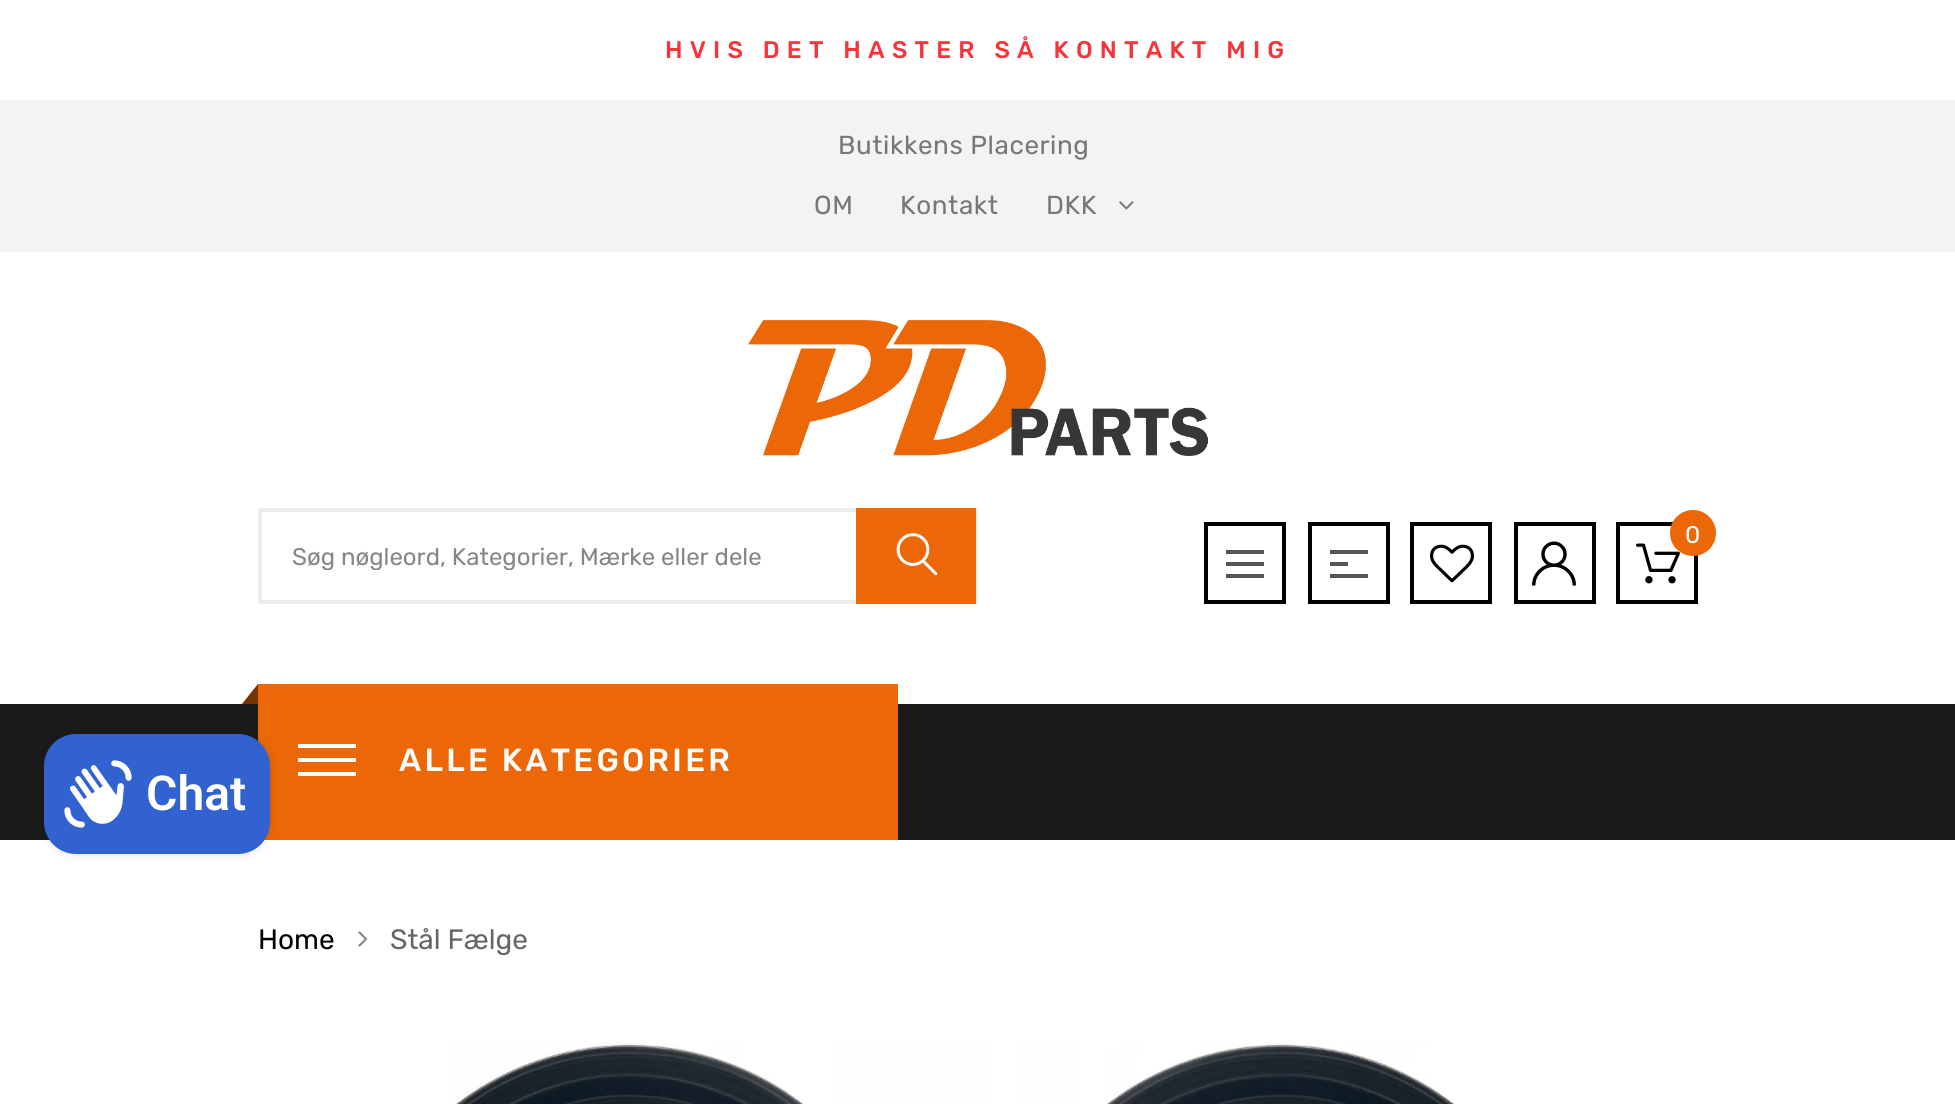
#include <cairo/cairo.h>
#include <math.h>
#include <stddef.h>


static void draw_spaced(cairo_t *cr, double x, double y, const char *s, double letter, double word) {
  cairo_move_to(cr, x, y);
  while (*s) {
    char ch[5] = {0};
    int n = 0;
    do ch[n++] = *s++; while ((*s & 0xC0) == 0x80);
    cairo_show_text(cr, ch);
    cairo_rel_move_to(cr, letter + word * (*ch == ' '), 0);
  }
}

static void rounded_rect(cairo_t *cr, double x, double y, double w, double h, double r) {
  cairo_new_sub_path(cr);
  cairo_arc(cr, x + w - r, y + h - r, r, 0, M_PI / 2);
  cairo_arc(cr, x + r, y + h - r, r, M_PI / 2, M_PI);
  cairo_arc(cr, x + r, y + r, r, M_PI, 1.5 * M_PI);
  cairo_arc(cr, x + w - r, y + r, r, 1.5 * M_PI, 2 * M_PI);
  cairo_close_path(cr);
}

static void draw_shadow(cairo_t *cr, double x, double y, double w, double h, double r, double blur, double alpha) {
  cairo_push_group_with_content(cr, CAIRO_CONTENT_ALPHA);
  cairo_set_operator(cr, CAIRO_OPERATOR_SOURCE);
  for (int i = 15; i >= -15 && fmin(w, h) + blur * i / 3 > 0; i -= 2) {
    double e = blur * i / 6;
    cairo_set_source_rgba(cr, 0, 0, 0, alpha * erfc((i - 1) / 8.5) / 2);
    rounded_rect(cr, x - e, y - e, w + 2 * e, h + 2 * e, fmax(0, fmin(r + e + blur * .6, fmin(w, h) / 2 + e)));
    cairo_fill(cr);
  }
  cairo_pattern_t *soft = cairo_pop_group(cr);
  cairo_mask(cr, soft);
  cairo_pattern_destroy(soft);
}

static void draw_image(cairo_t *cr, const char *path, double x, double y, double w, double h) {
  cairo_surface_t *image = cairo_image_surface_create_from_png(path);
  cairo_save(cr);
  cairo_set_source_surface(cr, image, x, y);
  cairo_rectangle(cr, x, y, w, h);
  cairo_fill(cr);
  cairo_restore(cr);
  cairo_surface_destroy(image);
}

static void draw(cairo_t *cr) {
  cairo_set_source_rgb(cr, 1, 1, 1);
  cairo_paint(cr);
  cairo_set_source_rgb(cr, 27 / 255.0, 27 / 255.0, 27 / 255.0);
  cairo_rectangle(cr, 0, 704, 1955, 136);
  cairo_fill(cr);
  cairo_set_source_rgb(cr, 236 / 255.0, 103 / 255.0, 7 / 255.0);
  cairo_rectangle(cr, 258, 684, 640, 156);
  cairo_fill(cr);
  cairo_set_source_rgb(cr, 0, 0, 0);
  draw_shadow(cr, 44, 734, 226, 120, 32, 5, 0.15);
  cairo_set_source_rgb(cr, 49 / 255.0, 98 / 255.0, 208 / 255.0);
  rounded_rect(cr, 44, 734, 226, 120, 32);
  cairo_fill(cr);
  draw_image(cr, "images/1.png", 64, 760, 68, 68);
  cairo_set_source_rgb(cr, 243 / 255.0, 243 / 255.0, 243 / 255.0);
  cairo_rectangle(cr, 0, 100, 1955, 152);
  cairo_fill(cr);
  draw_image(cr, "images/2.png", 1119, 201, 15, 9);
  draw_image(cr, "images/3.png", 748, 320, 460, 136);
  cairo_rectangle(cr, 1206, 524, 78, 78);
  cairo_set_source_rgb(cr, 0, 0, 0);
  cairo_set_line_width(cr, 4);
  cairo_stroke(cr);
  cairo_set_source_rgb(cr, 85 / 255.0, 85 / 255.0, 85 / 255.0);
  cairo_rectangle(cr, 1226, 550, 38, 4);
  cairo_fill(cr);
  cairo_rectangle(cr, 1226, 562, 38, 4);
  cairo_fill(cr);
  cairo_rectangle(cr, 1226, 574, 38, 4);
  cairo_fill(cr);
  cairo_rectangle(cr, 1310, 524, 78, 78);
  cairo_set_source_rgb(cr, 0, 0, 0);
  cairo_stroke(cr);
  cairo_set_source_rgb(cr, 85 / 255.0, 85 / 255.0, 85 / 255.0);
  cairo_rectangle(cr, 1330, 550, 38, 4);
  cairo_fill(cr);
  cairo_rectangle(cr, 1330, 562, 18, 4);
  cairo_fill(cr);
  cairo_rectangle(cr, 1330, 574, 38, 4);
  cairo_fill(cr);
  cairo_rectangle(cr, 1412, 524, 78, 78);
  cairo_set_source_rgb(cr, 0, 0, 0);
  cairo_stroke(cr);
  draw_image(cr, "images/4.png", 1430, 544, 44, 39);
  cairo_rectangle(cr, 1516, 524, 78, 78);
  cairo_stroke(cr);
  draw_image(cr, "images/5.png", 1532, 541, 44, 45);
  cairo_rectangle(cr, 1618, 524, 78, 78);
  cairo_stroke(cr);
  draw_image(cr, "images/6.png", 1636, 543, 44, 41);
  cairo_set_source_rgb(cr, 236 / 255.0, 103 / 255.0, 7 / 255.0);
  cairo_arc(cr, 1693, 533, 23, 0, 2 * M_PI);
  cairo_fill(cr);
  cairo_rectangle(cr, 260, 510, 716, 92);
  cairo_set_source_rgb(cr, 236 / 255.0, 236 / 255.0, 236 / 255.0);
  cairo_stroke(cr);
  cairo_set_source_rgb(cr, 236 / 255.0, 103 / 255.0, 7 / 255.0);
  cairo_rectangle(cr, 856, 508, 120, 96);
  cairo_fill(cr);
  draw_image(cr, "images/7.png", 896, 533, 42, 43);
  cairo_new_path(cr);
  cairo_move_to(cr, 258, 684);
  cairo_line_to(cr, 258, 704);
  cairo_line_to(cr, 242, 704);
  cairo_close_path(cr);
  cairo_fill(cr);
  cairo_set_source_rgb(cr, 1, 1, 1);
  cairo_rectangle(cr, 298, 744, 58, 4);
  cairo_fill(cr);
  cairo_rectangle(cr, 298, 758, 58, 4);
  cairo_fill(cr);
  cairo_rectangle(cr, 298, 772, 58, 4);
  cairo_fill(cr);
  cairo_set_source_rgba(cr, 0, 0, 0, 0.5);
  cairo_new_path(cr);
  cairo_move_to(cr, 258, 684);
  cairo_line_to(cr, 258, 704);
  cairo_line_to(cr, 242, 704);
  cairo_close_path(cr);
  cairo_fill(cr);
  draw_image(cr, "images/8.png", 358, 931, 10, 16);
  draw_image(cr, "images/9.png", 453, 1043, 1002, 61);
  cairo_select_font_face(cr, "Roboto SemiBold", CAIRO_FONT_SLANT_NORMAL, CAIRO_FONT_WEIGHT_NORMAL);
  cairo_set_font_size(cr, 48);
  cairo_set_source_rgb(cr, 1, 1, 1);
  cairo_move_to(cr, 146, 810);
  cairo_show_text(cr, "Chat");
  cairo_select_font_face(cr, "Rubik Medium", CAIRO_FONT_SLANT_NORMAL, CAIRO_FONT_WEIGHT_NORMAL);
  cairo_set_font_size(cr, 24);
  cairo_set_source_rgb(cr, 246 / 255.0, 52 / 255.0, 57 / 255.0);
  draw_spaced(cr, 665, 58, "HVIS DET HASTER SÅ KONTAKT MIG", 7.2, 0);
  cairo_select_font_face(cr, "Rubik", CAIRO_FONT_SLANT_NORMAL, CAIRO_FONT_WEIGHT_NORMAL);
  cairo_set_font_size(cr, 26);
  cairo_set_source_rgb(cr, 119 / 255.0, 119 / 255.0, 119 / 255.0);
  draw_spaced(cr, 838, 154, "Butikkens Placering", 0.6, 0);
  draw_spaced(cr, 814, 214, "OM", 0.6, 0);
  draw_spaced(cr, 900, 214, "Kontakt", 0.6, 0);
  draw_spaced(cr, 1046, 214, "DKK", 0.6, 0);
  cairo_set_font_size(cr, 24);
  cairo_set_source_rgb(cr, 1, 1, 1);
  cairo_move_to(cr, 1685, 543);
  cairo_show_text(cr, "0");
  cairo_save(cr);
  cairo_rectangle(cr, 292, 542, 546, 28);
  cairo_clip(cr);
  cairo_set_source_rgb(cr, 134 / 255.0, 134 / 255.0, 134 / 255.0);
  cairo_move_to(cr, 292, 565);
  cairo_show_text(cr, "Søg nøgleord, Kategorier, Mærke eller dele");
  cairo_restore(cr);
  cairo_select_font_face(cr, "Rubik Medium", CAIRO_FONT_SLANT_NORMAL, CAIRO_FONT_WEIGHT_NORMAL);
  cairo_set_font_size(cr, 32);
  draw_spaced(cr, 399, 771, "ALLE KATEGORIER", 3.25, 0);
  cairo_select_font_face(cr, "Rubik", CAIRO_FONT_SLANT_NORMAL, CAIRO_FONT_WEIGHT_NORMAL);
  cairo_set_font_size(cr, 28);
  cairo_set_source_rgb(cr, 0, 0, 0);
  cairo_move_to(cr, 258, 949);
  cairo_show_text(cr, "Home");
  cairo_set_source_rgb(cr, 102 / 255.0, 102 / 255.0, 102 / 255.0);
  cairo_move_to(cr, 390, 949);
  cairo_show_text(cr, "Stål Fælge");
}

int main(void) {
  cairo_surface_t *surface = cairo_image_surface_create(CAIRO_FORMAT_RGB24, 1955, 1104);
  cairo_t *cr = cairo_create(surface);
  cairo_font_options_t *options = cairo_font_options_create();
  cairo_font_options_set_hint_metrics(options, CAIRO_HINT_METRICS_OFF);
  cairo_font_options_set_hint_style(options, CAIRO_HINT_STYLE_NONE);
  cairo_set_font_options(cr, options);
  cairo_set_miter_limit(cr, 4);
  draw(cr);
  cairo_surface_write_to_png(surface, "out.png");
  cairo_font_options_destroy(options);
  cairo_destroy(cr);
  cairo_surface_destroy(surface);
  return 0;
}
